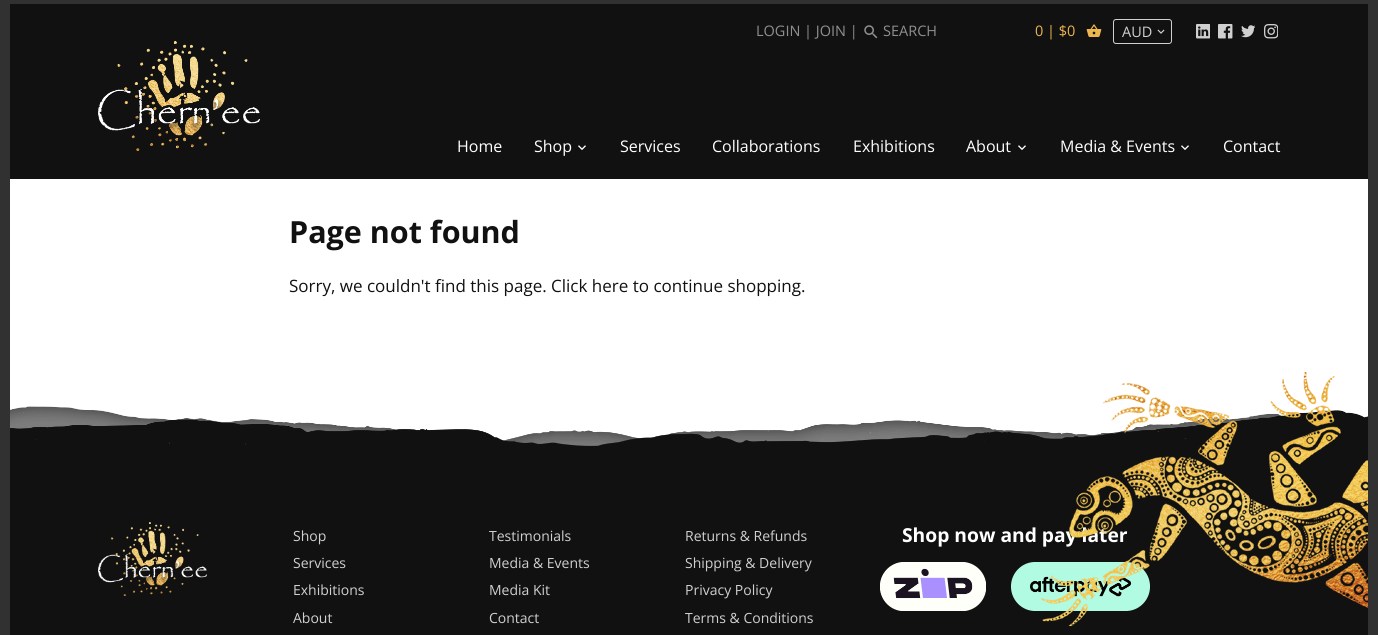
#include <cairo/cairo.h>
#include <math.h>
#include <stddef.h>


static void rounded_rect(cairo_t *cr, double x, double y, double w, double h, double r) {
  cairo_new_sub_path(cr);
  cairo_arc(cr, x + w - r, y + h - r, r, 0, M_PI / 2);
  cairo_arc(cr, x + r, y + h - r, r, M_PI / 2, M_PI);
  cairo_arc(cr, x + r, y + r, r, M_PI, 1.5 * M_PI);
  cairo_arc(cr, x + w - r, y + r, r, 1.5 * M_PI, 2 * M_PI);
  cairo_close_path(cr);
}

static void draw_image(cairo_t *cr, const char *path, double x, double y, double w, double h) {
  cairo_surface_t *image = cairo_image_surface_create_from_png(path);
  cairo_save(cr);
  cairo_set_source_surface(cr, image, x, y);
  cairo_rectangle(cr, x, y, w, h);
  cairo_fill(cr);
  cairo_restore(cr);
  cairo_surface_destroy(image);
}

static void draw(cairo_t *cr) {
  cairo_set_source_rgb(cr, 1, 1, 1);
  cairo_paint(cr);
  cairo_rectangle(cr, 5, -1, 1368, 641);
  cairo_set_source_rgb(cr, 49 / 255.0, 49 / 255.0, 49 / 255.0);
  cairo_set_line_width(cr, 10);
  cairo_stroke(cr);
  cairo_set_source_rgb(cr, 17 / 255.0, 17 / 255.0, 17 / 255.0);
  cairo_rectangle(cr, 10, 4, 1358, 175);
  cairo_fill(cr);
  draw_image(cr, "images/1.png", 864, 25, 14, 14);
  draw_image(cr, "images/2.png", 1086, 24, 16, 13);
  rounded_rect(cr, 1113.5, 19.5, 58, 24, 2.5);
  cairo_set_source_rgb(cr, 208 / 255.0, 208 / 255.0, 208 / 255.0);
  cairo_set_line_width(cr, 1);
  cairo_stroke(cr);
  draw_image(cr, "images/3.png", 1157, 29, 8, 5);
  draw_image(cr, "images/4.png", 1196, 24, 14, 15);
  draw_image(cr, "images/5.png", 1218, 24, 15, 15);
  draw_image(cr, "images/6.png", 1241, 25, 14, 13);
  draw_image(cr, "images/7.png", 1264, 24, 14, 15);
  draw_image(cr, "images/8.png", 98, 41, 162, 110);
  draw_image(cr, "images/9.png", 578, 145, 8, 5);
  draw_image(cr, "images/9.png", 1018, 145, 8, 5);
  draw_image(cr, "images/9.png", 1181, 145, 8, 5);
  draw_image(cr, "images/10.png", 10, 406, 1358, 41);
  cairo_set_source_rgb(cr, 17 / 255.0, 17 / 255.0, 17 / 255.0);
  cairo_rectangle(cr, 10, 447, 1358, 188);
  cairo_fill(cr);
  draw_image(cr, "images/11.png", 98, 522, 109, 74);
  draw_image(cr, "images/12.png", 880, 562, 106, 49);
  draw_image(cr, "images/13.png", 1011, 562, 139, 49);
  cairo_select_font_face(cr, "Open Sans", CAIRO_FONT_SLANT_NORMAL, CAIRO_FONT_WEIGHT_NORMAL);
  cairo_set_font_size(cr, 14.5);
  cairo_set_source_rgb(cr, 143 / 255.0, 143 / 255.0, 143 / 255.0);
  cairo_move_to(cr, 756, 36);
  cairo_show_text(cr, "LOGIN | JOIN |");
  cairo_move_to(cr, 883, 36);
  cairo_show_text(cr, "SEARCH");
  cairo_set_source_rgb(cr, 236 / 255.0, 181 / 255.0, 78 / 255.0);
  cairo_move_to(cr, 1035, 36);
  cairo_show_text(cr, "0 | $0");
  cairo_set_source_rgb(cr, 208 / 255.0, 208 / 255.0, 208 / 255.0);
  cairo_move_to(cr, 1122, 37);
  cairo_show_text(cr, "AUD");
  cairo_set_font_size(cr, 16);
  cairo_set_source_rgb(cr, 1, 1, 1);
  cairo_move_to(cr, 457, 152);
  cairo_show_text(cr, "Home");
  cairo_move_to(cr, 534, 152);
  cairo_show_text(cr, "Shop");
  cairo_move_to(cr, 620, 152);
  cairo_show_text(cr, "Services");
  cairo_move_to(cr, 712, 152);
  cairo_show_text(cr, "Collaborations");
  cairo_move_to(cr, 853, 152);
  cairo_show_text(cr, "Exhibitions");
  cairo_move_to(cr, 966, 152);
  cairo_show_text(cr, "About");
  cairo_move_to(cr, 1060, 152);
  cairo_show_text(cr, "Media & Events");
  cairo_move_to(cr, 1223, 152);
  cairo_show_text(cr, "Contact");
  cairo_select_font_face(cr, "Open Sans", CAIRO_FONT_SLANT_NORMAL, CAIRO_FONT_WEIGHT_BOLD);
  cairo_set_font_size(cr, 30.5);
  cairo_set_source_rgb(cr, 17 / 255.0, 17 / 255.0, 17 / 255.0);
  cairo_move_to(cr, 289, 243);
  cairo_show_text(cr, "Page not found");
  cairo_select_font_face(cr, "Open Sans", CAIRO_FONT_SLANT_NORMAL, CAIRO_FONT_WEIGHT_NORMAL);
  cairo_set_font_size(cr, 17);
  cairo_move_to(cr, 289, 292);
  cairo_show_text(cr, "Sorry, we couldn't find this page. Click here to continue shopping.");
  cairo_set_font_size(cr, 14);
  cairo_set_source_rgb(cr, 208 / 255.0, 208 / 255.0, 208 / 255.0);
  cairo_move_to(cr, 293, 541);
  cairo_show_text(cr, "Shop");
  cairo_move_to(cr, 293, 568);
  cairo_show_text(cr, "Services");
  cairo_move_to(cr, 293, 595);
  cairo_show_text(cr, "Exhibitions");
  cairo_move_to(cr, 293, 623);
  cairo_show_text(cr, "About");
  cairo_move_to(cr, 489, 541);
  cairo_show_text(cr, "Testimonials");
  cairo_move_to(cr, 489, 568);
  cairo_show_text(cr, "Media & Events");
  cairo_move_to(cr, 489, 595);
  cairo_show_text(cr, "Media Kit");
  cairo_move_to(cr, 489, 623);
  cairo_show_text(cr, "Contact");
  cairo_move_to(cr, 685, 541);
  cairo_show_text(cr, "Returns & Refunds");
  cairo_move_to(cr, 685, 568);
  cairo_show_text(cr, "Shipping & Delivery");
  cairo_move_to(cr, 685, 595);
  cairo_show_text(cr, "Privacy Policy");
  cairo_move_to(cr, 685, 623);
  cairo_show_text(cr, "Terms & Conditions");
  cairo_select_font_face(cr, "Open Sans", CAIRO_FONT_SLANT_NORMAL, CAIRO_FONT_WEIGHT_BOLD);
  cairo_set_font_size(cr, 19.25);
  cairo_set_source_rgb(cr, 1, 1, 1);
  cairo_move_to(cr, 902, 542);
  cairo_show_text(cr, "Shop now and pay later");
  draw_image(cr, "images/14.png", 1041, 372, 327, 254);
}

int main(void) {
  cairo_surface_t *surface = cairo_image_surface_create(CAIRO_FORMAT_RGB24, 1378, 635);
  cairo_t *cr = cairo_create(surface);
  cairo_font_options_t *options = cairo_font_options_create();
  cairo_font_options_set_hint_metrics(options, CAIRO_HINT_METRICS_OFF);
  cairo_font_options_set_hint_style(options, CAIRO_HINT_STYLE_NONE);
  cairo_set_font_options(cr, options);
  cairo_set_miter_limit(cr, 4);
  draw(cr);
  cairo_surface_write_to_png(surface, "out.png");
  cairo_font_options_destroy(options);
  cairo_destroy(cr);
  cairo_surface_destroy(surface);
  return 0;
}
